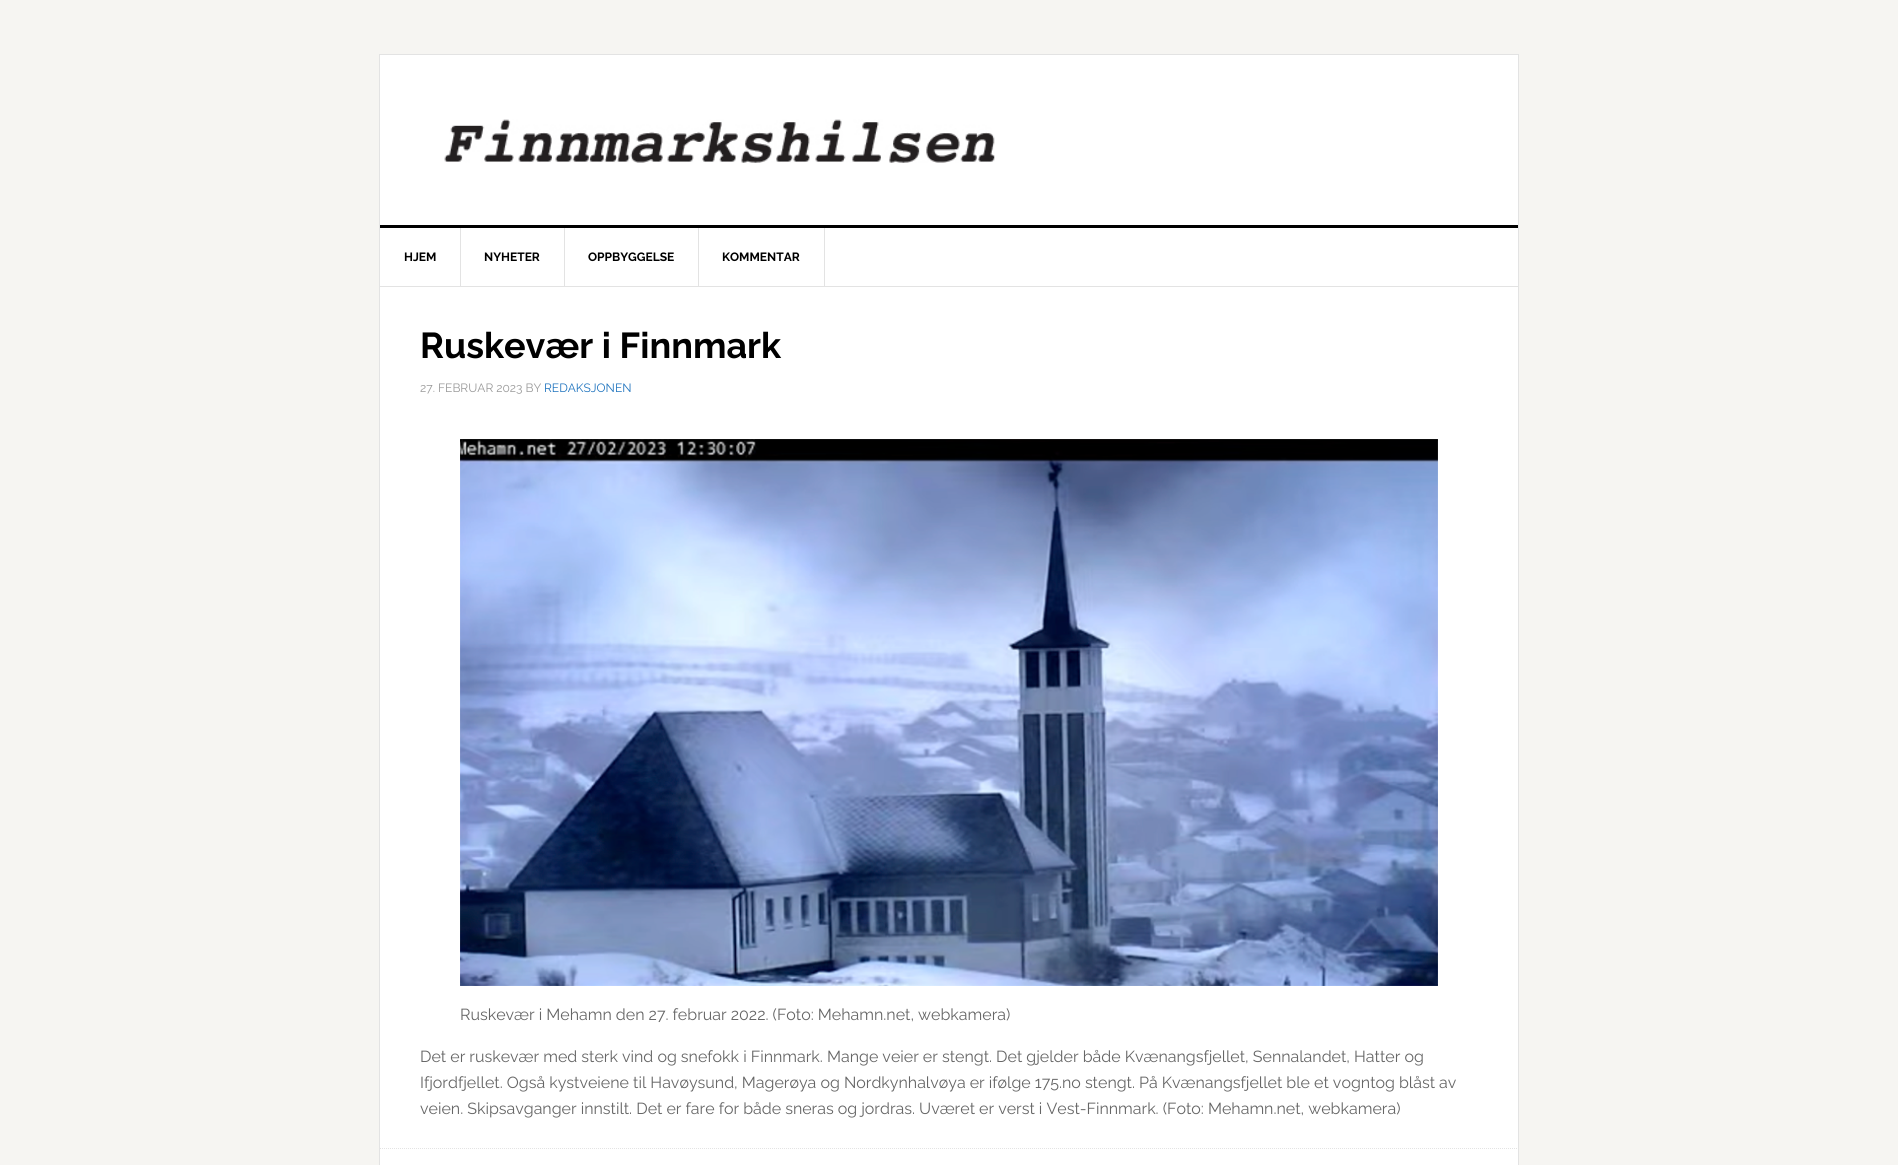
#include <cairo/cairo.h>
#include <math.h>
#include <stddef.h>


static void draw_image(cairo_t *cr, const char *path, double x, double y, double w, double h) {
  cairo_surface_t *image = cairo_image_surface_create_from_png(path);
  cairo_save(cr);
  cairo_set_source_surface(cr, image, x, y);
  cairo_rectangle(cr, x, y, w, h);
  cairo_fill(cr);
  cairo_restore(cr);
  cairo_surface_destroy(image);
}

static void draw(cairo_t *cr) {
  cairo_set_source_rgb(cr, 246 / 255.0, 245 / 255.0, 242 / 255.0);
  cairo_paint(cr);
  cairo_set_source_rgb(cr, 1, 1, 1);
  cairo_rectangle(cr, 379.5, 54.5, 1139, 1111);
  cairo_fill_preserve(cr);
  cairo_set_source_rgb(cr, 227 / 255.0, 227 / 255.0, 227 / 255.0);
  cairo_set_line_width(cr, 1);
  cairo_stroke(cr);
  cairo_set_source_rgb(cr, 0, 0, 0);
  cairo_rectangle(cr, 380, 225, 1138, 3);
  cairo_fill(cr);
  draw_image(cr, "images/1.png", 444, 119, 551, 44);
  cairo_set_source_rgb(cr, 227 / 255.0, 227 / 255.0, 227 / 255.0);
  cairo_rectangle(cr, 380, 286, 1138, 1);
  cairo_fill(cr);
  cairo_rectangle(cr, 460, 228, 1, 58);
  cairo_fill(cr);
  cairo_rectangle(cr, 564, 228, 1, 58);
  cairo_fill(cr);
  cairo_rectangle(cr, 698, 228, 1, 58);
  cairo_fill(cr);
  cairo_rectangle(cr, 824, 228, 1, 58);
  cairo_fill(cr);
  draw_image(cr, "images/2.png", 460, 439, 978, 547);
  cairo_new_path(cr);
  cairo_move_to(cr, 380, 1148.5);
  cairo_line_to(cr, 1518, 1148.5);
  cairo_set_dash(cr, (double[]){1, 1}, 2, 0);
  cairo_stroke(cr);
  cairo_select_font_face(cr, "Raleway", CAIRO_FONT_SLANT_NORMAL, CAIRO_FONT_WEIGHT_BOLD);
  cairo_set_font_size(cr, 12);
  cairo_set_source_rgb(cr, 0, 0, 0);
  cairo_move_to(cr, 404, 261);
  cairo_show_text(cr, "HJEM");
  cairo_move_to(cr, 484, 261);
  cairo_show_text(cr, "NYHETER");
  cairo_move_to(cr, 588, 261);
  cairo_show_text(cr, "OPPBYGGELSE");
  cairo_move_to(cr, 722, 261);
  cairo_show_text(cr, "KOMMENTAR");
  cairo_set_font_size(cr, 36);
  cairo_move_to(cr, 420, 358);
  cairo_show_text(cr, "Ruskevær i Finnmark");
  cairo_select_font_face(cr, "Raleway", CAIRO_FONT_SLANT_NORMAL, CAIRO_FONT_WEIGHT_NORMAL);
  cairo_set_font_size(cr, 12);
  cairo_set_source_rgb(cr, 153 / 255.0, 153 / 255.0, 153 / 255.0);
  cairo_move_to(cr, 420, 392);
  cairo_show_text(cr, "27. FEBRUAR 2023 BY");
  cairo_set_source_rgb(cr, 30 / 255.0, 115 / 255.0, 190 / 255.0);
  cairo_move_to(cr, 544, 392);
  cairo_show_text(cr, "REDAKSJONEN");
  cairo_set_font_size(cr, 16);
  cairo_set_source_rgb(cr, 102 / 255.0, 102 / 255.0, 102 / 255.0);
  cairo_move_to(cr, 460, 1020);
  cairo_show_text(cr, "Ruskevær i Mehamn den 27. februar 2022. (Foto: Mehamn.net, webkamera)");
  cairo_move_to(cr, 420, 1062);
  cairo_show_text(cr, "Det er ruskevær med sterk vind og snefokk i Finnmark. Mange veier er stengt. Det gjelder både Kvænangsfjellet, Sennalandet, Hatter og");
  cairo_move_to(cr, 420, 1088);
  cairo_show_text(cr, "Ifjordfjellet. Også kystveiene til Havøysund, Magerøya og Nordkynhalvøya er ifølge 175.no stengt. På Kvænangsfjellet ble et vogntog blåst av");
  cairo_move_to(cr, 420, 1114);
  cairo_show_text(cr, "veien. Skipsavganger innstilt. Det er fare for både sneras og jordras. Uværet er verst i Vest-Finnmark. (Foto: Mehamn.net, webkamera)");
}

int main(void) {
  cairo_surface_t *surface = cairo_image_surface_create(CAIRO_FORMAT_RGB24, 1898, 1165);
  cairo_t *cr = cairo_create(surface);
  cairo_font_options_t *options = cairo_font_options_create();
  cairo_font_options_set_hint_metrics(options, CAIRO_HINT_METRICS_OFF);
  cairo_font_options_set_hint_style(options, CAIRO_HINT_STYLE_NONE);
  cairo_set_font_options(cr, options);
  cairo_set_miter_limit(cr, 4);
  draw(cr);
  cairo_surface_write_to_png(surface, "out.png");
  cairo_font_options_destroy(options);
  cairo_destroy(cr);
  cairo_surface_destroy(surface);
  return 0;
}
